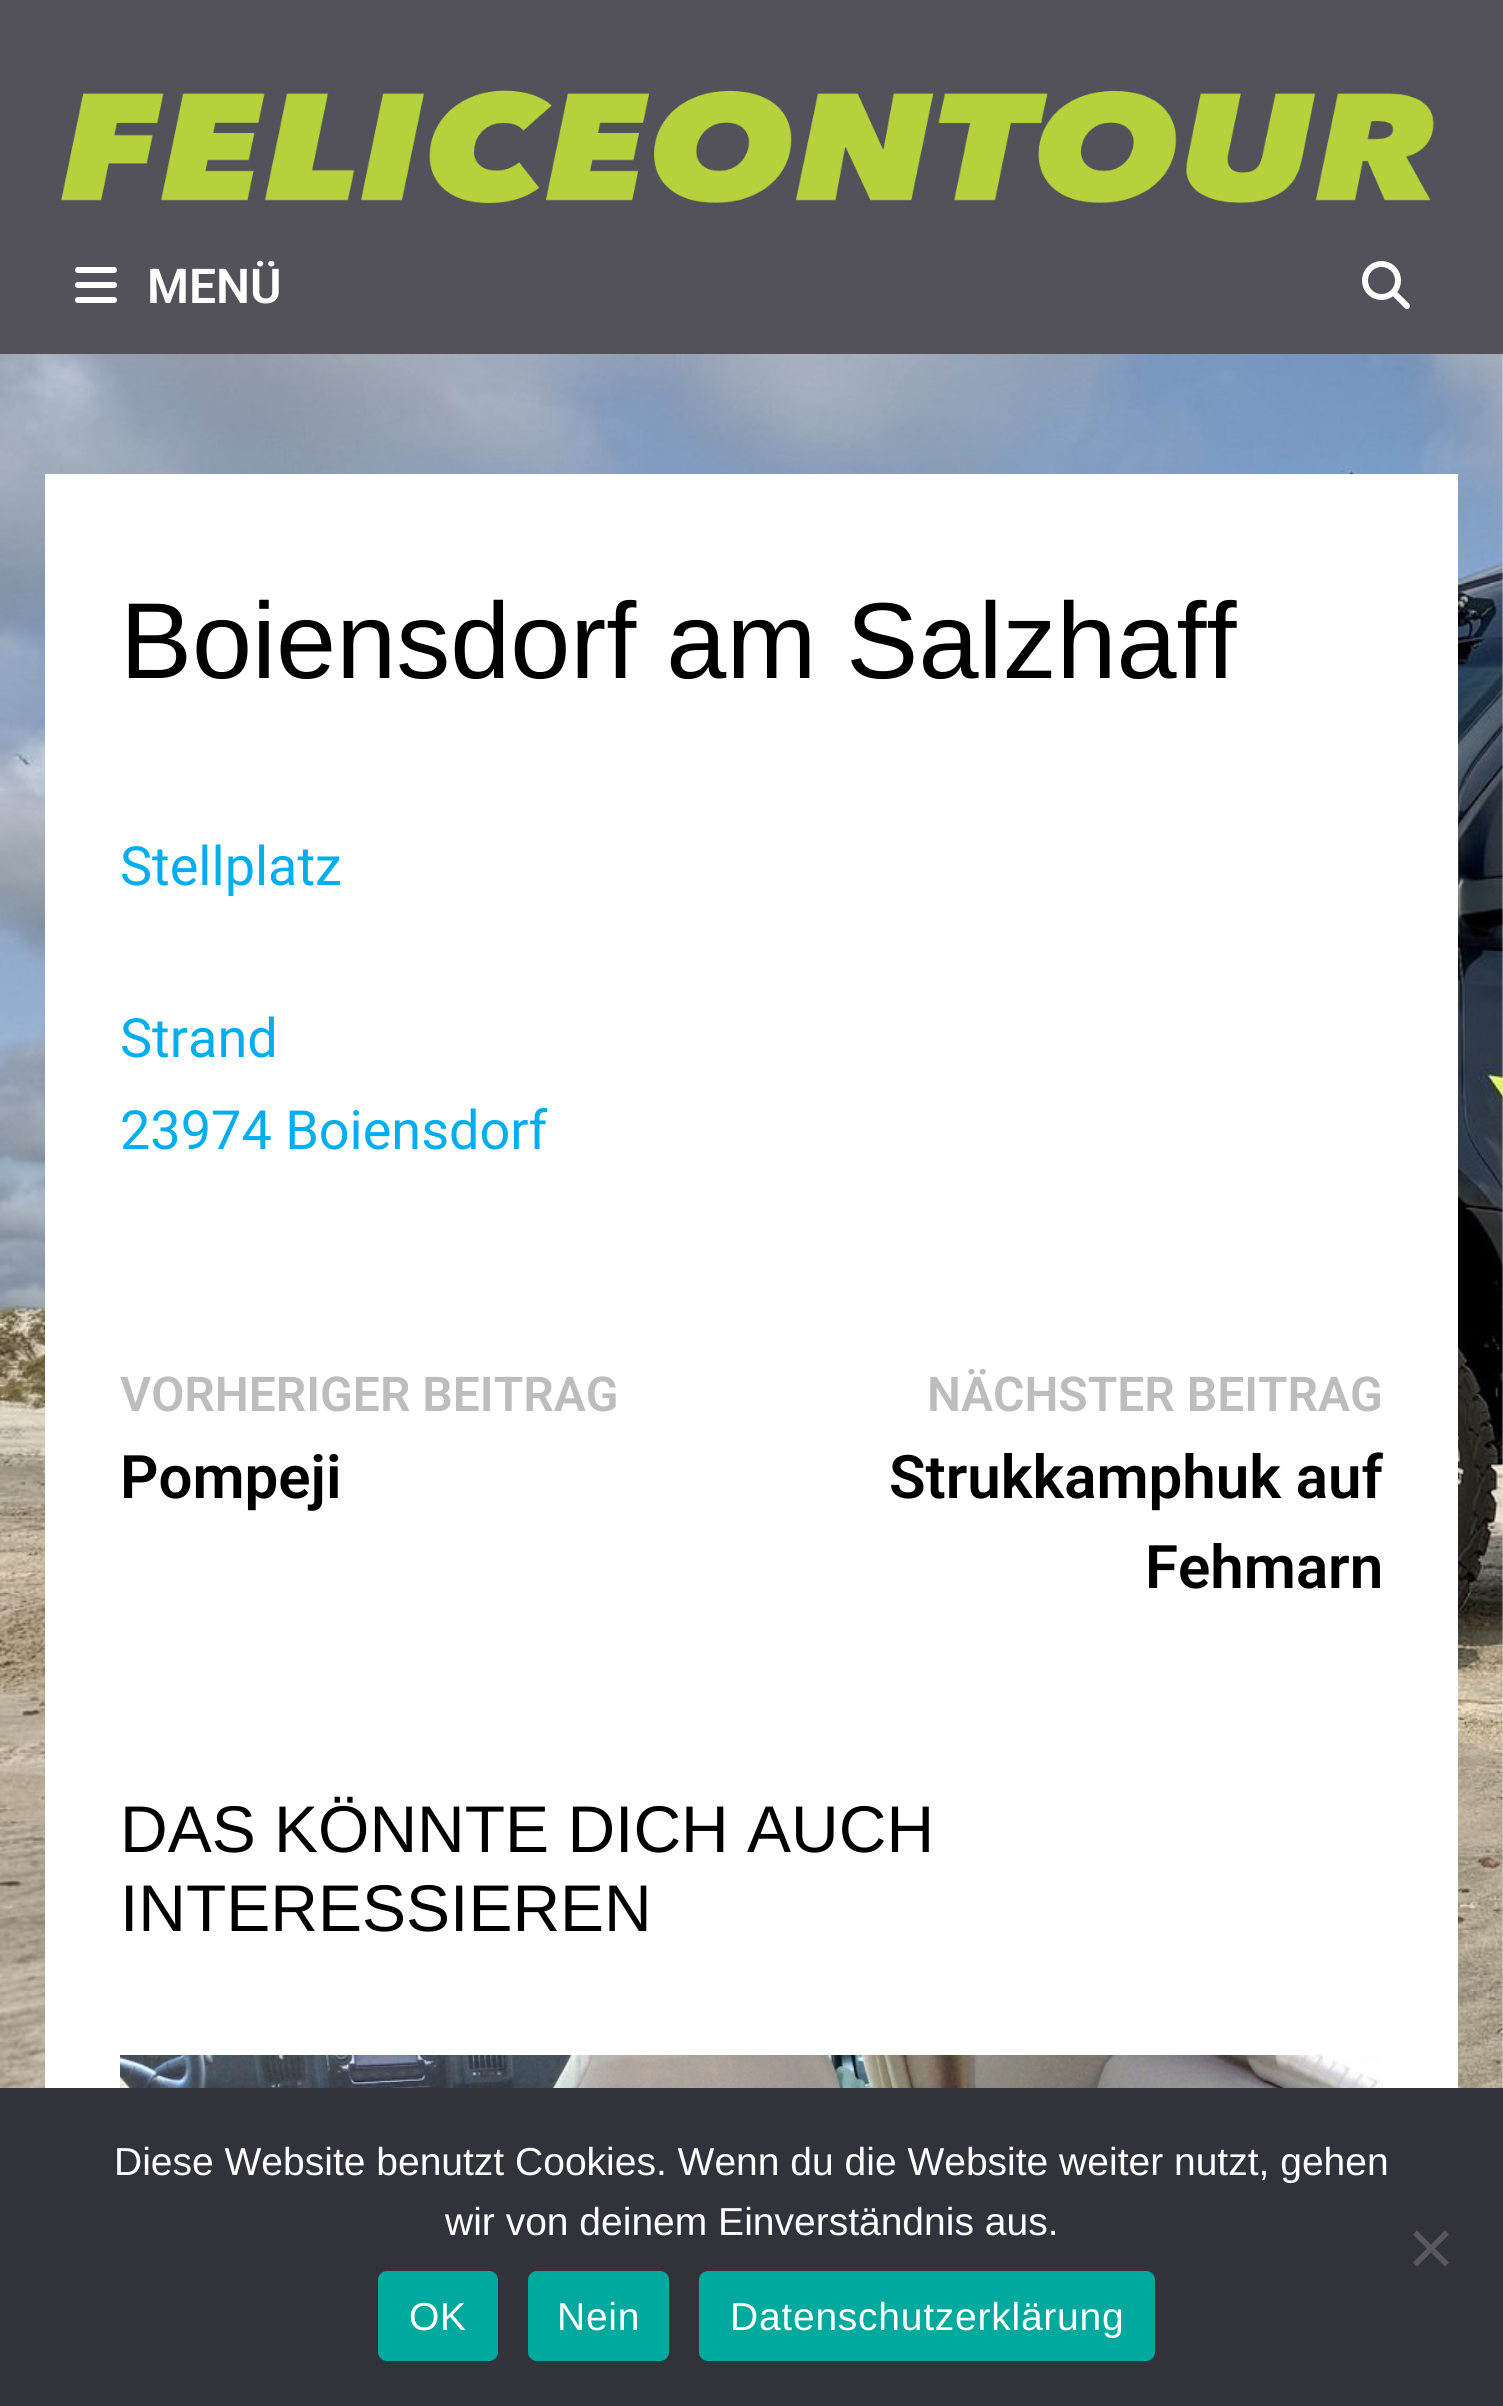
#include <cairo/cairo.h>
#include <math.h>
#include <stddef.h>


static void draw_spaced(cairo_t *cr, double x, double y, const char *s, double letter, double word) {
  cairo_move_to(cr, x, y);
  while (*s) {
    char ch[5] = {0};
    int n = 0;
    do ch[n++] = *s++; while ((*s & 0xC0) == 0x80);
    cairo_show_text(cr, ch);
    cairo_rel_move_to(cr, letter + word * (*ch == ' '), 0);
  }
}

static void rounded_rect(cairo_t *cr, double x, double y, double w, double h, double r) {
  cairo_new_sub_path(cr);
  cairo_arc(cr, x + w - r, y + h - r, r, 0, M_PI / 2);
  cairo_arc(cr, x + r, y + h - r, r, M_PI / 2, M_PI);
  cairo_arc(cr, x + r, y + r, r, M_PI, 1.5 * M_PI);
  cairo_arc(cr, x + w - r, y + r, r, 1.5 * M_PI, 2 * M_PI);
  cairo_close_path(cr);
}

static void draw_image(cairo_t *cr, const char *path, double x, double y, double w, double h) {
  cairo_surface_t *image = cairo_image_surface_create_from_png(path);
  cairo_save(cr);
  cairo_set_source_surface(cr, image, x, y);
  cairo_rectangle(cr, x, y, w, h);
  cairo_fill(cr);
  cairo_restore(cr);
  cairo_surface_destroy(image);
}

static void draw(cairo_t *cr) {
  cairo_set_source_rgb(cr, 238 / 255.0, 238 / 255.0, 238 / 255.0);
  cairo_paint(cr);
  draw_image(cr, "images/1.png", 0, 354, 1503, 1734);
  cairo_set_source_rgb(cr, 83 / 255.0, 81 / 255.0, 89 / 255.0);
  cairo_rectangle(cr, 0, 0, 1503, 354);
  cairo_fill(cr);
  draw_image(cr, "images/2.png", 61, 90, 1373, 114);
  draw_image(cr, "images/3.png", 75, 267, 42, 36);
  draw_image(cr, "images/4.png", 1362, 261, 48, 48);
  cairo_set_source_rgb(cr, 1, 1, 1);
  cairo_rectangle(cr, 45, 474, 1413, 1614);
  cairo_fill(cr);
  draw_image(cr, "images/5.png", 120, 2055, 1263, 33);
  cairo_set_source_rgb(cr, 50 / 255.0, 50 / 255.0, 58 / 255.0);
  cairo_rectangle(cr, 0, 2088, 1503, 318);
  cairo_fill(cr);
  cairo_set_source_rgb(cr, 89 / 255.0, 89 / 255.0, 93 / 255.0);
  cairo_new_path(cr);
  cairo_move_to(cr, 1445, 2230.5);
  cairo_line_to(cr, 1449, 2234.5);
  cairo_line_to(cr, 1417, 2266.5);
  cairo_line_to(cr, 1413, 2262.5);
  cairo_close_path(cr);
  cairo_fill(cr);
  cairo_new_path(cr);
  cairo_move_to(cr, 1413, 2234.5);
  cairo_line_to(cr, 1417, 2230.5);
  cairo_line_to(cr, 1449, 2262.5);
  cairo_line_to(cr, 1445, 2266.5);
  cairo_close_path(cr);
  cairo_fill(cr);
  cairo_set_source_rgb(cr, 0, 169 / 255.0, 157 / 255.0);
  rounded_rect(cr, 378, 2271, 120, 90, 9);
  cairo_fill(cr);
  rounded_rect(cr, 528, 2271, 141, 90, 9);
  cairo_fill(cr);
  rounded_rect(cr, 699, 2271, 456, 90, 9);
  cairo_fill(cr);
  cairo_select_font_face(cr, "Roboto SemiBold", CAIRO_FONT_SLANT_NORMAL, CAIRO_FONT_WEIGHT_NORMAL);
  cairo_set_font_size(cr, 48);
  cairo_set_source_rgb(cr, 1, 1, 1);
  cairo_move_to(cr, 147, 303);
  cairo_show_text(cr, "MENÜ");
  cairo_select_font_face(cr, "Liberation Sans", CAIRO_FONT_SLANT_NORMAL, CAIRO_FONT_WEIGHT_NORMAL);
  cairo_set_font_size(cr, 108);
  cairo_set_source_rgb(cr, 0, 0, 0);
  cairo_move_to(cr, 120, 678);
  cairo_show_text(cr, "Boiensdorf am Salzhaff");
  cairo_select_font_face(cr, "Roboto", CAIRO_FONT_SLANT_NORMAL, CAIRO_FONT_WEIGHT_NORMAL);
  cairo_set_font_size(cr, 54);
  cairo_set_source_rgb(cr, 0, 174 / 255.0, 239 / 255.0);
  cairo_move_to(cr, 120, 885);
  cairo_show_text(cr, "Stellplatz");
  cairo_move_to(cr, 120, 1057);
  cairo_show_text(cr, "Strand");
  cairo_move_to(cr, 120, 1149);
  cairo_show_text(cr, "23974 Boiensdorf");
  cairo_select_font_face(cr, "Roboto SemiBold", CAIRO_FONT_SLANT_NORMAL, CAIRO_FONT_WEIGHT_NORMAL);
  cairo_set_font_size(cr, 48);
  cairo_set_source_rgb(cr, 189 / 255.0, 189 / 255.0, 189 / 255.0);
  cairo_move_to(cr, 120, 1411);
  cairo_show_text(cr, "VORHERIGER BEITRAG");
  cairo_set_font_size(cr, 60);
  cairo_set_source_rgb(cr, 0, 0, 0);
  cairo_move_to(cr, 120, 1498);
  cairo_show_text(cr, "Pompeji");
  cairo_set_font_size(cr, 48);
  cairo_set_source_rgb(cr, 189 / 255.0, 189 / 255.0, 189 / 255.0);
  cairo_move_to(cr, 927, 1411);
  cairo_show_text(cr, "NÄCHSTER BEITRAG");
  cairo_set_font_size(cr, 60);
  cairo_set_source_rgb(cr, 0, 0, 0);
  cairo_move_to(cr, 889, 1498);
  cairo_show_text(cr, "Strukkamphuk auf");
  cairo_move_to(cr, 1145, 1588);
  cairo_show_text(cr, "Fehmarn");
  cairo_select_font_face(cr, "Liberation Sans", CAIRO_FONT_SLANT_NORMAL, CAIRO_FONT_WEIGHT_NORMAL);
  cairo_set_font_size(cr, 66);
  cairo_move_to(cr, 120, 1852);
  cairo_show_text(cr, "DAS KÖNNTE DICH AUCH");
  cairo_move_to(cr, 120, 1931);
  cairo_show_text(cr, "INTERESSIEREN");
  cairo_set_font_size(cr, 39);
  cairo_set_source_rgb(cr, 1, 1, 1);
  cairo_move_to(cr, 114, 2175);
  cairo_show_text(cr, "Diese Website benutzt Cookies. Wenn du die Website weiter nutzt, gehen");
  cairo_move_to(cr, 445, 2235);
  cairo_show_text(cr, "wir von deinem Einverständnis aus.");
  draw_spaced(cr, 409, 2330, "OK", 0.75, 0);
  draw_spaced(cr, 557, 2330, "Nein", 0.75, 0);
  draw_spaced(cr, 730, 2330, "Datenschutzerklärung", 0.75, 0);
}

int main(void) {
  cairo_surface_t *surface = cairo_image_surface_create(CAIRO_FORMAT_RGB24, 1503, 2406);
  cairo_t *cr = cairo_create(surface);
  cairo_font_options_t *options = cairo_font_options_create();
  cairo_font_options_set_hint_metrics(options, CAIRO_HINT_METRICS_OFF);
  cairo_font_options_set_hint_style(options, CAIRO_HINT_STYLE_NONE);
  cairo_set_font_options(cr, options);
  cairo_set_miter_limit(cr, 4);
  draw(cr);
  cairo_surface_write_to_png(surface, "out.png");
  cairo_font_options_destroy(options);
  cairo_destroy(cr);
  cairo_surface_destroy(surface);
  return 0;
}
